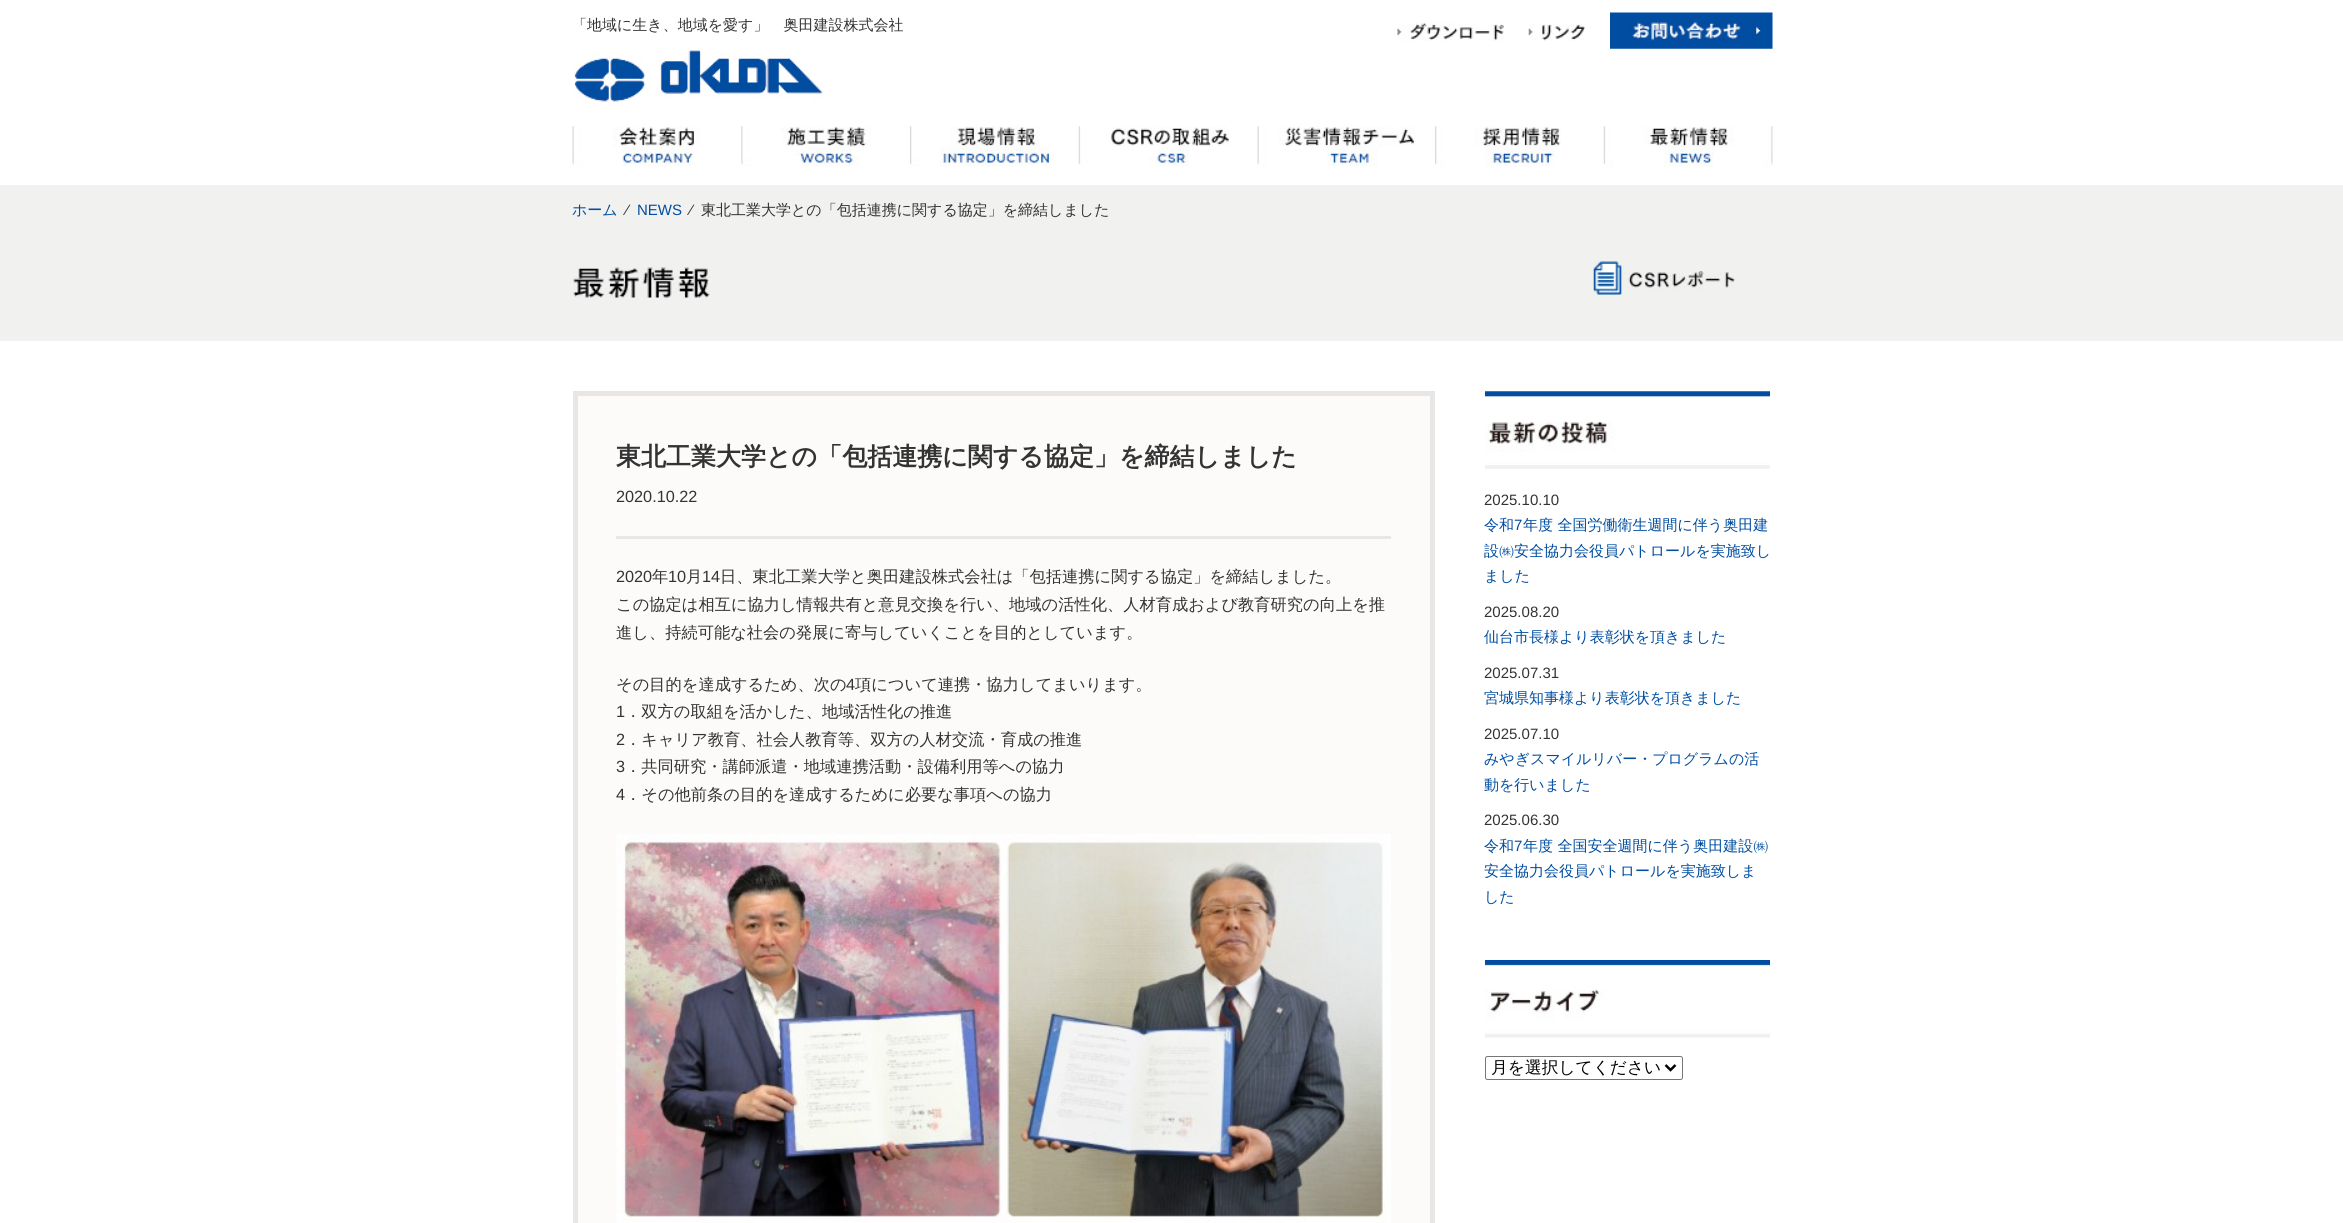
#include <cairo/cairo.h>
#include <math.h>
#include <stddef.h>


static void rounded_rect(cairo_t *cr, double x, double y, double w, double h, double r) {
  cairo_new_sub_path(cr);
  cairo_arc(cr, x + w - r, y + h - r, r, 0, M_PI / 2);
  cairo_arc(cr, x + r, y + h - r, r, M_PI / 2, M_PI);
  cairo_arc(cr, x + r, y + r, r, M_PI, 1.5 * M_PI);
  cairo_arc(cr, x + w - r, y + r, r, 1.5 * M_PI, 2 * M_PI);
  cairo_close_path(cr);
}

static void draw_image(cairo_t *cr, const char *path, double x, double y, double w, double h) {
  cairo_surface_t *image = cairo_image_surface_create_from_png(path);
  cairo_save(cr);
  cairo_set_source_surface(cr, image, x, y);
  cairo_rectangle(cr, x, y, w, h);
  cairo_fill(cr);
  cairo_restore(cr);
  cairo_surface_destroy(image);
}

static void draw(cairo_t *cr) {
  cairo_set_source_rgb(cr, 1, 1, 1);
  cairo_paint(cr);
  draw_image(cr, "images/1.png", 1397, 22, 107, 19);
  draw_image(cr, "images/2.png", 1528, 24, 57, 17);
  draw_image(cr, "images/3.png", 1610, 12, 163, 37);
  draw_image(cr, "images/4.png", 574, 50, 249, 56);
  draw_image(cr, "images/5.png", 572, 126, 129, 41);
  draw_image(cr, "images/6.png", 741, 126, 130, 41);
  draw_image(cr, "images/7.png", 910, 126, 140, 41);
  draw_image(cr, "images/8.png", 1078, 126, 151, 41);
  draw_image(cr, "images/9.png", 1257, 126, 158, 41);
  draw_image(cr, "images/10.png", 1435, 126, 126, 41);
  draw_image(cr, "images/11.png", 1603, 126, 170, 41);
  cairo_set_source_rgb(cr, 241 / 255.0, 241 / 255.0, 239 / 255.0);
  cairo_rectangle(cr, 0, 185, 2343, 156);
  cairo_fill(cr);
  draw_image(cr, "images/12.png", 573, 267, 137, 31);
  draw_image(cr, "images/13.png", 1593, 261, 142, 34);
  cairo_set_source_rgb(cr, 252 / 255.0, 251 / 255.0, 249 / 255.0);
  cairo_rectangle(cr, 575.5, 393.5, 857, 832);
  cairo_fill_preserve(cr);
  cairo_set_source_rgb(cr, 232 / 255.0, 231 / 255.0, 229 / 255.0);
  cairo_set_line_width(cr, 5);
  cairo_stroke(cr);
  cairo_rectangle(cr, 616, 536, 775, 3);
  cairo_fill(cr);
  draw_image(cr, "images/14.png", 616, 834, 775, 389);
  draw_image(cr, "images/15.png", 1485, 391, 285, 78);
  draw_image(cr, "images/16.png", 1485, 960, 285, 78);
  rounded_rect(cr, 1485.5, 1056.5, 197, 23, 2);
  cairo_set_source_rgb(cr, 118 / 255.0, 118 / 255.0, 118 / 255.0);
  cairo_set_line_width(cr, 1);
  cairo_stroke(cr);
  cairo_new_path(cr);
  cairo_move_to(cr, 1665.5, 1065);
  cairo_line_to(cr, 1670.5, 1070);
  cairo_line_to(cr, 1675.5, 1065);
  cairo_set_source_rgb(cr, 0, 0, 0);
  cairo_set_line_width(cr, 2.5);
  cairo_stroke(cr);
  cairo_select_font_face(cr, "WenQuanYi Zen Hei Medium", CAIRO_FONT_SLANT_NORMAL, CAIRO_FONT_WEIGHT_NORMAL);
  cairo_set_font_size(cr, 15);
  cairo_set_source_rgb(cr, 51 / 255.0, 51 / 255.0, 51 / 255.0);
  cairo_move_to(cr, 572, 30);
  cairo_show_text(cr, "「地域に生き、地域を愛す」　奥田建設株式会社");
  cairo_set_source_rgb(cr, 0, 77 / 255.0, 161 / 255.0);
  cairo_move_to(cr, 572, 215);
  cairo_show_text(cr, "ホーム");
  cairo_select_font_face(cr, "Liberation Sans", CAIRO_FONT_SLANT_NORMAL, CAIRO_FONT_WEIGHT_NORMAL);
  cairo_set_source_rgb(cr, 51 / 255.0, 51 / 255.0, 51 / 255.0);
  cairo_move_to(cr, 626, 215);
  cairo_show_text(cr, "⁄");
  cairo_set_source_rgb(cr, 0, 77 / 255.0, 161 / 255.0);
  cairo_move_to(cr, 637, 215);
  cairo_show_text(cr, "NEWS");
  cairo_set_source_rgb(cr, 51 / 255.0, 51 / 255.0, 51 / 255.0);
  cairo_move_to(cr, 690, 215);
  cairo_show_text(cr, "⁄");
  cairo_select_font_face(cr, "WenQuanYi Zen Hei Medium", CAIRO_FONT_SLANT_NORMAL, CAIRO_FONT_WEIGHT_NORMAL);
  cairo_move_to(cr, 701, 215);
  cairo_show_text(cr, "東北工業大学との「包括連携に関する協定」を締結しました");
  cairo_select_font_face(cr, "WenQuanYi Zen Hei", CAIRO_FONT_SLANT_NORMAL, CAIRO_FONT_WEIGHT_BOLD);
  cairo_set_font_size(cr, 25);
  cairo_move_to(cr, 616, 465);
  cairo_show_text(cr, "東北工業大学との「包括連携に関する協定」を締結しました");
  cairo_select_font_face(cr, "Liberation Sans", CAIRO_FONT_SLANT_NORMAL, CAIRO_FONT_WEIGHT_NORMAL);
  cairo_set_font_size(cr, 16.25);
  cairo_move_to(cr, 616, 502);
  cairo_show_text(cr, "2020.10.22");
  cairo_move_to(cr, 616, 582);
  cairo_show_text(cr, "2020");
  cairo_select_font_face(cr, "WenQuanYi Zen Hei Medium", CAIRO_FONT_SLANT_NORMAL, CAIRO_FONT_WEIGHT_NORMAL);
  cairo_move_to(cr, 652, 582);
  cairo_show_text(cr, "年");
  cairo_select_font_face(cr, "Liberation Sans", CAIRO_FONT_SLANT_NORMAL, CAIRO_FONT_WEIGHT_NORMAL);
  cairo_move_to(cr, 668, 582);
  cairo_show_text(cr, "10");
  cairo_select_font_face(cr, "WenQuanYi Zen Hei Medium", CAIRO_FONT_SLANT_NORMAL, CAIRO_FONT_WEIGHT_NORMAL);
  cairo_move_to(cr, 686, 582);
  cairo_show_text(cr, "月");
  cairo_select_font_face(cr, "Liberation Sans", CAIRO_FONT_SLANT_NORMAL, CAIRO_FONT_WEIGHT_NORMAL);
  cairo_move_to(cr, 702, 582);
  cairo_show_text(cr, "14");
  cairo_select_font_face(cr, "WenQuanYi Zen Hei Medium", CAIRO_FONT_SLANT_NORMAL, CAIRO_FONT_WEIGHT_NORMAL);
  cairo_move_to(cr, 720, 582);
  cairo_show_text(cr, "日、東北工業大学と奥田建設株式会社は「包括連携に関する協定」を締結しました。");
  cairo_move_to(cr, 616, 610);
  cairo_show_text(cr, "この協定は相互に協力し情報共有と意見交換を行い、地域の活性化、人材育成および教育研究の向上を推");
  cairo_move_to(cr, 616, 638);
  cairo_show_text(cr, "進し、持続可能な社会の発展に寄与していくことを目的としています。");
  cairo_move_to(cr, 616, 690);
  cairo_show_text(cr, "その目的を達成するため、次の");
  cairo_select_font_face(cr, "Liberation Sans", CAIRO_FONT_SLANT_NORMAL, CAIRO_FONT_WEIGHT_NORMAL);
  cairo_move_to(cr, 846, 690);
  cairo_show_text(cr, "4");
  cairo_select_font_face(cr, "WenQuanYi Zen Hei Medium", CAIRO_FONT_SLANT_NORMAL, CAIRO_FONT_WEIGHT_NORMAL);
  cairo_move_to(cr, 855, 690);
  cairo_show_text(cr, "項について連携・協力してまいります。");
  cairo_select_font_face(cr, "Liberation Sans", CAIRO_FONT_SLANT_NORMAL, CAIRO_FONT_WEIGHT_NORMAL);
  cairo_move_to(cr, 616, 717);
  cairo_show_text(cr, "1");
  cairo_select_font_face(cr, "WenQuanYi Zen Hei Medium", CAIRO_FONT_SLANT_NORMAL, CAIRO_FONT_WEIGHT_NORMAL);
  cairo_move_to(cr, 625, 717);
  cairo_show_text(cr, "．双方の取組を活かした、地域活性化の推進");
  cairo_select_font_face(cr, "Liberation Sans", CAIRO_FONT_SLANT_NORMAL, CAIRO_FONT_WEIGHT_NORMAL);
  cairo_move_to(cr, 616, 745);
  cairo_show_text(cr, "2");
  cairo_select_font_face(cr, "WenQuanYi Zen Hei Medium", CAIRO_FONT_SLANT_NORMAL, CAIRO_FONT_WEIGHT_NORMAL);
  cairo_move_to(cr, 625, 745);
  cairo_show_text(cr, "．キャリア教育、社会人教育等、双方の人材交流・育成の推進");
  cairo_select_font_face(cr, "Liberation Sans", CAIRO_FONT_SLANT_NORMAL, CAIRO_FONT_WEIGHT_NORMAL);
  cairo_move_to(cr, 616, 772);
  cairo_show_text(cr, "3");
  cairo_select_font_face(cr, "WenQuanYi Zen Hei Medium", CAIRO_FONT_SLANT_NORMAL, CAIRO_FONT_WEIGHT_NORMAL);
  cairo_move_to(cr, 625, 772);
  cairo_show_text(cr, "．共同研究・講師派遣・地域連携活動・設備利用等への協力");
  cairo_select_font_face(cr, "Liberation Sans", CAIRO_FONT_SLANT_NORMAL, CAIRO_FONT_WEIGHT_NORMAL);
  cairo_move_to(cr, 616, 800);
  cairo_show_text(cr, "4");
  cairo_select_font_face(cr, "WenQuanYi Zen Hei Medium", CAIRO_FONT_SLANT_NORMAL, CAIRO_FONT_WEIGHT_NORMAL);
  cairo_move_to(cr, 625, 800);
  cairo_show_text(cr, "．その他前条の目的を達成するために必要な事項への協力");
  cairo_select_font_face(cr, "Liberation Sans", CAIRO_FONT_SLANT_NORMAL, CAIRO_FONT_WEIGHT_NORMAL);
  cairo_set_font_size(cr, 15);
  cairo_move_to(cr, 1484, 505);
  cairo_show_text(cr, "2025.10.10");
  cairo_select_font_face(cr, "WenQuanYi Zen Hei Medium", CAIRO_FONT_SLANT_NORMAL, CAIRO_FONT_WEIGHT_NORMAL);
  cairo_set_source_rgb(cr, 0, 77 / 255.0, 161 / 255.0);
  cairo_move_to(cr, 1484, 530);
  cairo_show_text(cr, "令和");
  cairo_select_font_face(cr, "Liberation Sans", CAIRO_FONT_SLANT_NORMAL, CAIRO_FONT_WEIGHT_NORMAL);
  cairo_move_to(cr, 1514, 530);
  cairo_show_text(cr, "7");
  cairo_select_font_face(cr, "WenQuanYi Zen Hei Medium", CAIRO_FONT_SLANT_NORMAL, CAIRO_FONT_WEIGHT_NORMAL);
  cairo_move_to(cr, 1523, 530);
  cairo_show_text(cr, "年度 全国労働衛生週間に伴う奥田建");
  cairo_move_to(cr, 1484, 556);
  cairo_show_text(cr, "設㈱安全協力会役員パトロールを実施致し");
  cairo_move_to(cr, 1484, 581);
  cairo_show_text(cr, "ました");
  cairo_select_font_face(cr, "Liberation Sans", CAIRO_FONT_SLANT_NORMAL, CAIRO_FONT_WEIGHT_NORMAL);
  cairo_set_source_rgb(cr, 51 / 255.0, 51 / 255.0, 51 / 255.0);
  cairo_move_to(cr, 1484, 617);
  cairo_show_text(cr, "2025.08.20");
  cairo_select_font_face(cr, "WenQuanYi Zen Hei Medium", CAIRO_FONT_SLANT_NORMAL, CAIRO_FONT_WEIGHT_NORMAL);
  cairo_set_source_rgb(cr, 0, 77 / 255.0, 161 / 255.0);
  cairo_move_to(cr, 1484, 642);
  cairo_show_text(cr, "仙台市長様より表彰状を頂きました");
  cairo_select_font_face(cr, "Liberation Sans", CAIRO_FONT_SLANT_NORMAL, CAIRO_FONT_WEIGHT_NORMAL);
  cairo_set_source_rgb(cr, 51 / 255.0, 51 / 255.0, 51 / 255.0);
  cairo_move_to(cr, 1484, 678);
  cairo_show_text(cr, "2025.07.31");
  cairo_select_font_face(cr, "WenQuanYi Zen Hei Medium", CAIRO_FONT_SLANT_NORMAL, CAIRO_FONT_WEIGHT_NORMAL);
  cairo_set_source_rgb(cr, 0, 77 / 255.0, 161 / 255.0);
  cairo_move_to(cr, 1484, 703);
  cairo_show_text(cr, "宮城県知事様より表彰状を頂きました");
  cairo_select_font_face(cr, "Liberation Sans", CAIRO_FONT_SLANT_NORMAL, CAIRO_FONT_WEIGHT_NORMAL);
  cairo_set_source_rgb(cr, 51 / 255.0, 51 / 255.0, 51 / 255.0);
  cairo_move_to(cr, 1484, 739);
  cairo_show_text(cr, "2025.07.10");
  cairo_select_font_face(cr, "WenQuanYi Zen Hei Medium", CAIRO_FONT_SLANT_NORMAL, CAIRO_FONT_WEIGHT_NORMAL);
  cairo_set_source_rgb(cr, 0, 77 / 255.0, 161 / 255.0);
  cairo_move_to(cr, 1484, 764);
  cairo_show_text(cr, "みやぎスマイルリバー・プログラムの活");
  cairo_move_to(cr, 1484, 790);
  cairo_show_text(cr, "動を行いました");
  cairo_select_font_face(cr, "Liberation Sans", CAIRO_FONT_SLANT_NORMAL, CAIRO_FONT_WEIGHT_NORMAL);
  cairo_set_source_rgb(cr, 51 / 255.0, 51 / 255.0, 51 / 255.0);
  cairo_move_to(cr, 1484, 825);
  cairo_show_text(cr, "2025.06.30");
  cairo_select_font_face(cr, "WenQuanYi Zen Hei Medium", CAIRO_FONT_SLANT_NORMAL, CAIRO_FONT_WEIGHT_NORMAL);
  cairo_set_source_rgb(cr, 0, 77 / 255.0, 161 / 255.0);
  cairo_move_to(cr, 1484, 851);
  cairo_show_text(cr, "令和");
  cairo_select_font_face(cr, "Liberation Sans", CAIRO_FONT_SLANT_NORMAL, CAIRO_FONT_WEIGHT_NORMAL);
  cairo_move_to(cr, 1514, 851);
  cairo_show_text(cr, "7");
  cairo_select_font_face(cr, "WenQuanYi Zen Hei Medium", CAIRO_FONT_SLANT_NORMAL, CAIRO_FONT_WEIGHT_NORMAL);
  cairo_move_to(cr, 1523, 851);
  cairo_show_text(cr, "年度 全国安全週間に伴う奥田建設㈱");
  cairo_move_to(cr, 1484, 876);
  cairo_show_text(cr, "安全協力会役員パトロールを実施致しま");
  cairo_move_to(cr, 1484, 902);
  cairo_show_text(cr, "した");
  cairo_set_font_size(cr, 16.75);
  cairo_set_source_rgb(cr, 0, 0, 0);
  cairo_move_to(cr, 1491, 1073);
  cairo_show_text(cr, "月を選択してください");
}

int main(void) {
  cairo_surface_t *surface = cairo_image_surface_create(CAIRO_FORMAT_RGB24, 2343, 1223);
  cairo_t *cr = cairo_create(surface);
  cairo_font_options_t *options = cairo_font_options_create();
  cairo_font_options_set_hint_metrics(options, CAIRO_HINT_METRICS_OFF);
  cairo_font_options_set_hint_style(options, CAIRO_HINT_STYLE_NONE);
  cairo_set_font_options(cr, options);
  cairo_set_miter_limit(cr, 4);
  draw(cr);
  cairo_surface_write_to_png(surface, "out.png");
  cairo_font_options_destroy(options);
  cairo_destroy(cr);
  cairo_surface_destroy(surface);
  return 0;
}
